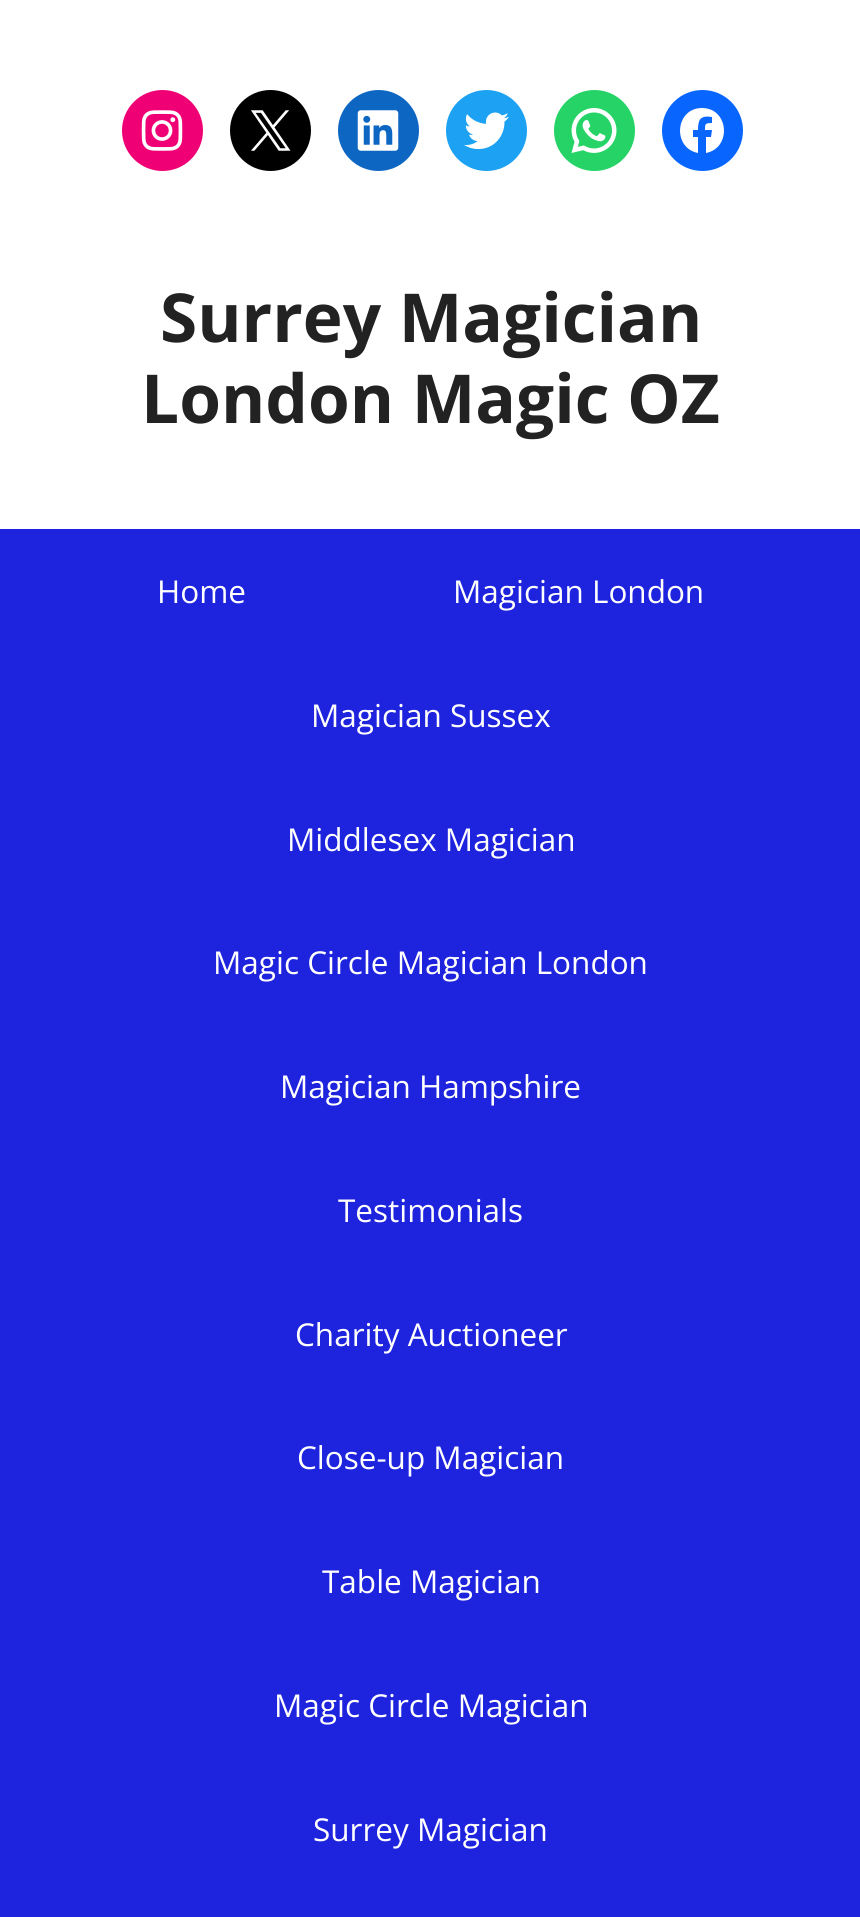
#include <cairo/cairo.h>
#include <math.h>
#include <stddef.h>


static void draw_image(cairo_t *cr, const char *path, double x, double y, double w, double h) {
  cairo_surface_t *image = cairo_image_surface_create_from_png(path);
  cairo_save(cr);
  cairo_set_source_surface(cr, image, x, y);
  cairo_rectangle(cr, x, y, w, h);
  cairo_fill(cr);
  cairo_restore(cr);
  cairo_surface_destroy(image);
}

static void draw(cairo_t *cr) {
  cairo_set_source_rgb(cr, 30 / 255.0, 35 / 255.0, 221 / 255.0);
  cairo_paint(cr);
  cairo_set_source_rgb(cr, 1, 1, 1);
  cairo_rectangle(cr, 0, 0, 860, 529);
  cairo_fill(cr);
  cairo_set_source_rgb(cr, 240 / 255.0, 0, 117 / 255.0);
  cairo_arc(cr, 162.5, 130.5, 40.5, 0, 2 * M_PI);
  cairo_fill(cr);
  draw_image(cr, "images/1.png", 141, 110, 42, 41);
  cairo_set_source_rgb(cr, 0, 0, 0);
  cairo_arc(cr, 270.5, 130.5, 40.5, 0, 2 * M_PI);
  cairo_fill(cr);
  draw_image(cr, "images/2.png", 251, 110, 40, 41);
  cairo_set_source_rgb(cr, 13 / 255.0, 102 / 255.0, 194 / 255.0);
  cairo_arc(cr, 378.5, 130.5, 40.5, 0, 2 * M_PI);
  cairo_fill(cr);
  draw_image(cr, "images/3.png", 357, 110, 42, 41);
  cairo_set_source_rgb(cr, 29 / 255.0, 161 / 255.0, 242 / 255.0);
  cairo_arc(cr, 486.5, 130.5, 40.5, 0, 2 * M_PI);
  cairo_fill(cr);
  draw_image(cr, "images/4.png", 464, 112, 45, 38);
  cairo_set_source_rgb(cr, 37 / 255.0, 211 / 255.0, 102 / 255.0);
  cairo_arc(cr, 594.5, 130.5, 40.5, 0, 2 * M_PI);
  cairo_fill(cr);
  draw_image(cr, "images/5.png", 571, 108, 46, 45);
  cairo_set_source_rgb(cr, 8 / 255.0, 102 / 255.0, 1);
  cairo_arc(cr, 702.5, 130.5, 40.5, 0, 2 * M_PI);
  cairo_fill(cr);
  cairo_set_source_rgb(cr, 1, 1, 1);
  cairo_new_path(cr);
  cairo_move_to(cr, 702, 108);
  cairo_curve_to(cr, 675, 108, 672, 148, 698, 153);
  cairo_line_to(cr, 698, 137);
  cairo_line_to(cr, 693, 137);
  cairo_line_to(cr, 693, 130);
  cairo_line_to(cr, 698, 130);
  cairo_curve_to(cr, 698, 120, 700, 115, 712, 117);
  cairo_line_to(cr, 712, 123);
  cairo_curve_to(cr, 705, 123, 705, 124, 705, 130);
  cairo_line_to(cr, 712, 130);
  cairo_line_to(cr, 711, 137);
  cairo_line_to(cr, 706, 137);
  cairo_line_to(cr, 706, 153);
  cairo_curve_to(cr, 732, 148, 729, 108, 702, 108);
  cairo_close_path(cr);
  cairo_fill(cr);
  cairo_select_font_face(cr, "Open Sans", CAIRO_FONT_SLANT_NORMAL, CAIRO_FONT_WEIGHT_BOLD);
  cairo_set_font_size(cr, 67.5);
  cairo_set_source_rgb(cr, 34 / 255.0, 34 / 255.0, 34 / 255.0);
  cairo_move_to(cr, 160, 342);
  cairo_show_text(cr, "Surrey Magician");
  cairo_move_to(cr, 141, 423);
  cairo_show_text(cr, "London Magic OZ");
  cairo_select_font_face(cr, "Open Sans", CAIRO_FONT_SLANT_NORMAL, CAIRO_FONT_WEIGHT_NORMAL);
  cairo_set_font_size(cr, 31.5);
  cairo_set_source_rgb(cr, 1, 1, 1);
  cairo_move_to(cr, 157, 603);
  cairo_show_text(cr, "Home");
  cairo_move_to(cr, 453, 603);
  cairo_show_text(cr, "Magician London");
  cairo_move_to(cr, 311, 727);
  cairo_show_text(cr, "Magician Sussex");
  cairo_move_to(cr, 287, 851);
  cairo_show_text(cr, "Middlesex Magician");
  cairo_move_to(cr, 213, 974);
  cairo_show_text(cr, "Magic Circle Magician London");
  cairo_move_to(cr, 280, 1098);
  cairo_show_text(cr, "Magician Hampshire");
  cairo_move_to(cr, 338, 1222);
  cairo_show_text(cr, "Testimonials");
  cairo_move_to(cr, 295, 1346);
  cairo_show_text(cr, "Charity Auctioneer");
  cairo_move_to(cr, 297, 1469);
  cairo_show_text(cr, "Close-up Magician");
  cairo_move_to(cr, 322, 1593);
  cairo_show_text(cr, "Table Magician");
  cairo_move_to(cr, 274, 1717);
  cairo_show_text(cr, "Magic Circle Magician");
  cairo_move_to(cr, 313, 1841);
  cairo_show_text(cr, "Surrey Magician");
}

int main(void) {
  cairo_surface_t *surface = cairo_image_surface_create(CAIRO_FORMAT_RGB24, 860, 1917);
  cairo_t *cr = cairo_create(surface);
  cairo_font_options_t *options = cairo_font_options_create();
  cairo_font_options_set_hint_metrics(options, CAIRO_HINT_METRICS_OFF);
  cairo_font_options_set_hint_style(options, CAIRO_HINT_STYLE_NONE);
  cairo_set_font_options(cr, options);
  cairo_set_miter_limit(cr, 4);
  draw(cr);
  cairo_surface_write_to_png(surface, "out.png");
  cairo_font_options_destroy(options);
  cairo_destroy(cr);
  cairo_surface_destroy(surface);
  return 0;
}
